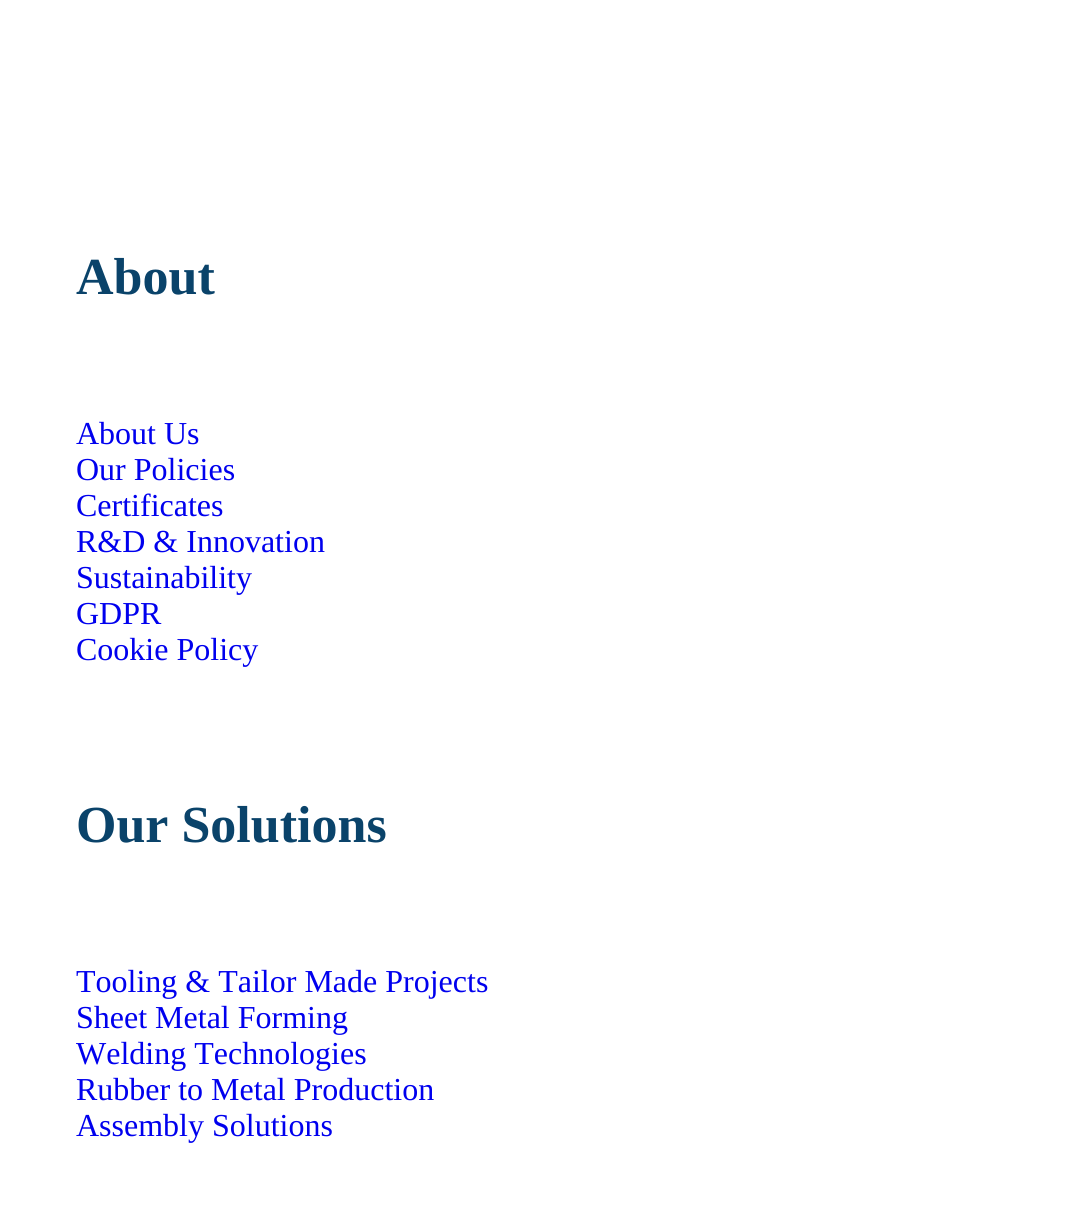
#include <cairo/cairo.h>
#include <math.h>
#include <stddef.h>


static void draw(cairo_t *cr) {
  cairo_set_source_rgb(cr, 1, 1, 1);
  cairo_paint(cr);
  cairo_select_font_face(cr, "Liberation Serif", CAIRO_FONT_SLANT_NORMAL, CAIRO_FONT_WEIGHT_BOLD);
  cairo_set_font_size(cr, 52);
  cairo_set_source_rgb(cr, 10 / 255.0, 67 / 255.0, 106 / 255.0);
  cairo_move_to(cr, 76, 294);
  cairo_show_text(cr, "About");
  cairo_select_font_face(cr, "Liberation Serif", CAIRO_FONT_SLANT_NORMAL, CAIRO_FONT_WEIGHT_NORMAL);
  cairo_set_font_size(cr, 32);
  cairo_set_source_rgb(cr, 0, 0, 238 / 255.0);
  cairo_move_to(cr, 76, 444);
  cairo_show_text(cr, "About Us");
  cairo_move_to(cr, 76, 480);
  cairo_show_text(cr, "Our Policies");
  cairo_move_to(cr, 76, 516);
  cairo_show_text(cr, "Certificates");
  cairo_move_to(cr, 76, 552);
  cairo_show_text(cr, "R&D & Innovation");
  cairo_move_to(cr, 76, 588);
  cairo_show_text(cr, "Sustainability");
  cairo_move_to(cr, 76, 624);
  cairo_show_text(cr, "GDPR");
  cairo_move_to(cr, 76, 660);
  cairo_show_text(cr, "Cookie Policy");
  cairo_select_font_face(cr, "Liberation Serif", CAIRO_FONT_SLANT_NORMAL, CAIRO_FONT_WEIGHT_BOLD);
  cairo_set_font_size(cr, 52);
  cairo_set_source_rgb(cr, 10 / 255.0, 67 / 255.0, 106 / 255.0);
  cairo_move_to(cr, 76, 842);
  cairo_show_text(cr, "Our Solutions");
  cairo_select_font_face(cr, "Liberation Serif", CAIRO_FONT_SLANT_NORMAL, CAIRO_FONT_WEIGHT_NORMAL);
  cairo_set_font_size(cr, 32);
  cairo_set_source_rgb(cr, 0, 0, 238 / 255.0);
  cairo_move_to(cr, 76, 992);
  cairo_show_text(cr, "Tooling & Tailor Made Projects");
  cairo_move_to(cr, 76, 1028);
  cairo_show_text(cr, "Sheet Metal Forming");
  cairo_move_to(cr, 76, 1064);
  cairo_show_text(cr, "Welding Technologies");
  cairo_move_to(cr, 76, 1100);
  cairo_show_text(cr, "Rubber to Metal Production");
  cairo_move_to(cr, 76, 1136);
  cairo_show_text(cr, "Assembly Solutions");
}

int main(void) {
  cairo_surface_t *surface = cairo_image_surface_create(CAIRO_FORMAT_RGB24, 1088, 1229);
  cairo_t *cr = cairo_create(surface);
  cairo_font_options_t *options = cairo_font_options_create();
  cairo_font_options_set_hint_metrics(options, CAIRO_HINT_METRICS_OFF);
  cairo_font_options_set_hint_style(options, CAIRO_HINT_STYLE_NONE);
  cairo_set_font_options(cr, options);
  cairo_set_miter_limit(cr, 4);
  draw(cr);
  cairo_surface_write_to_png(surface, "out.png");
  cairo_font_options_destroy(options);
  cairo_destroy(cr);
  cairo_surface_destroy(surface);
  return 0;
}
